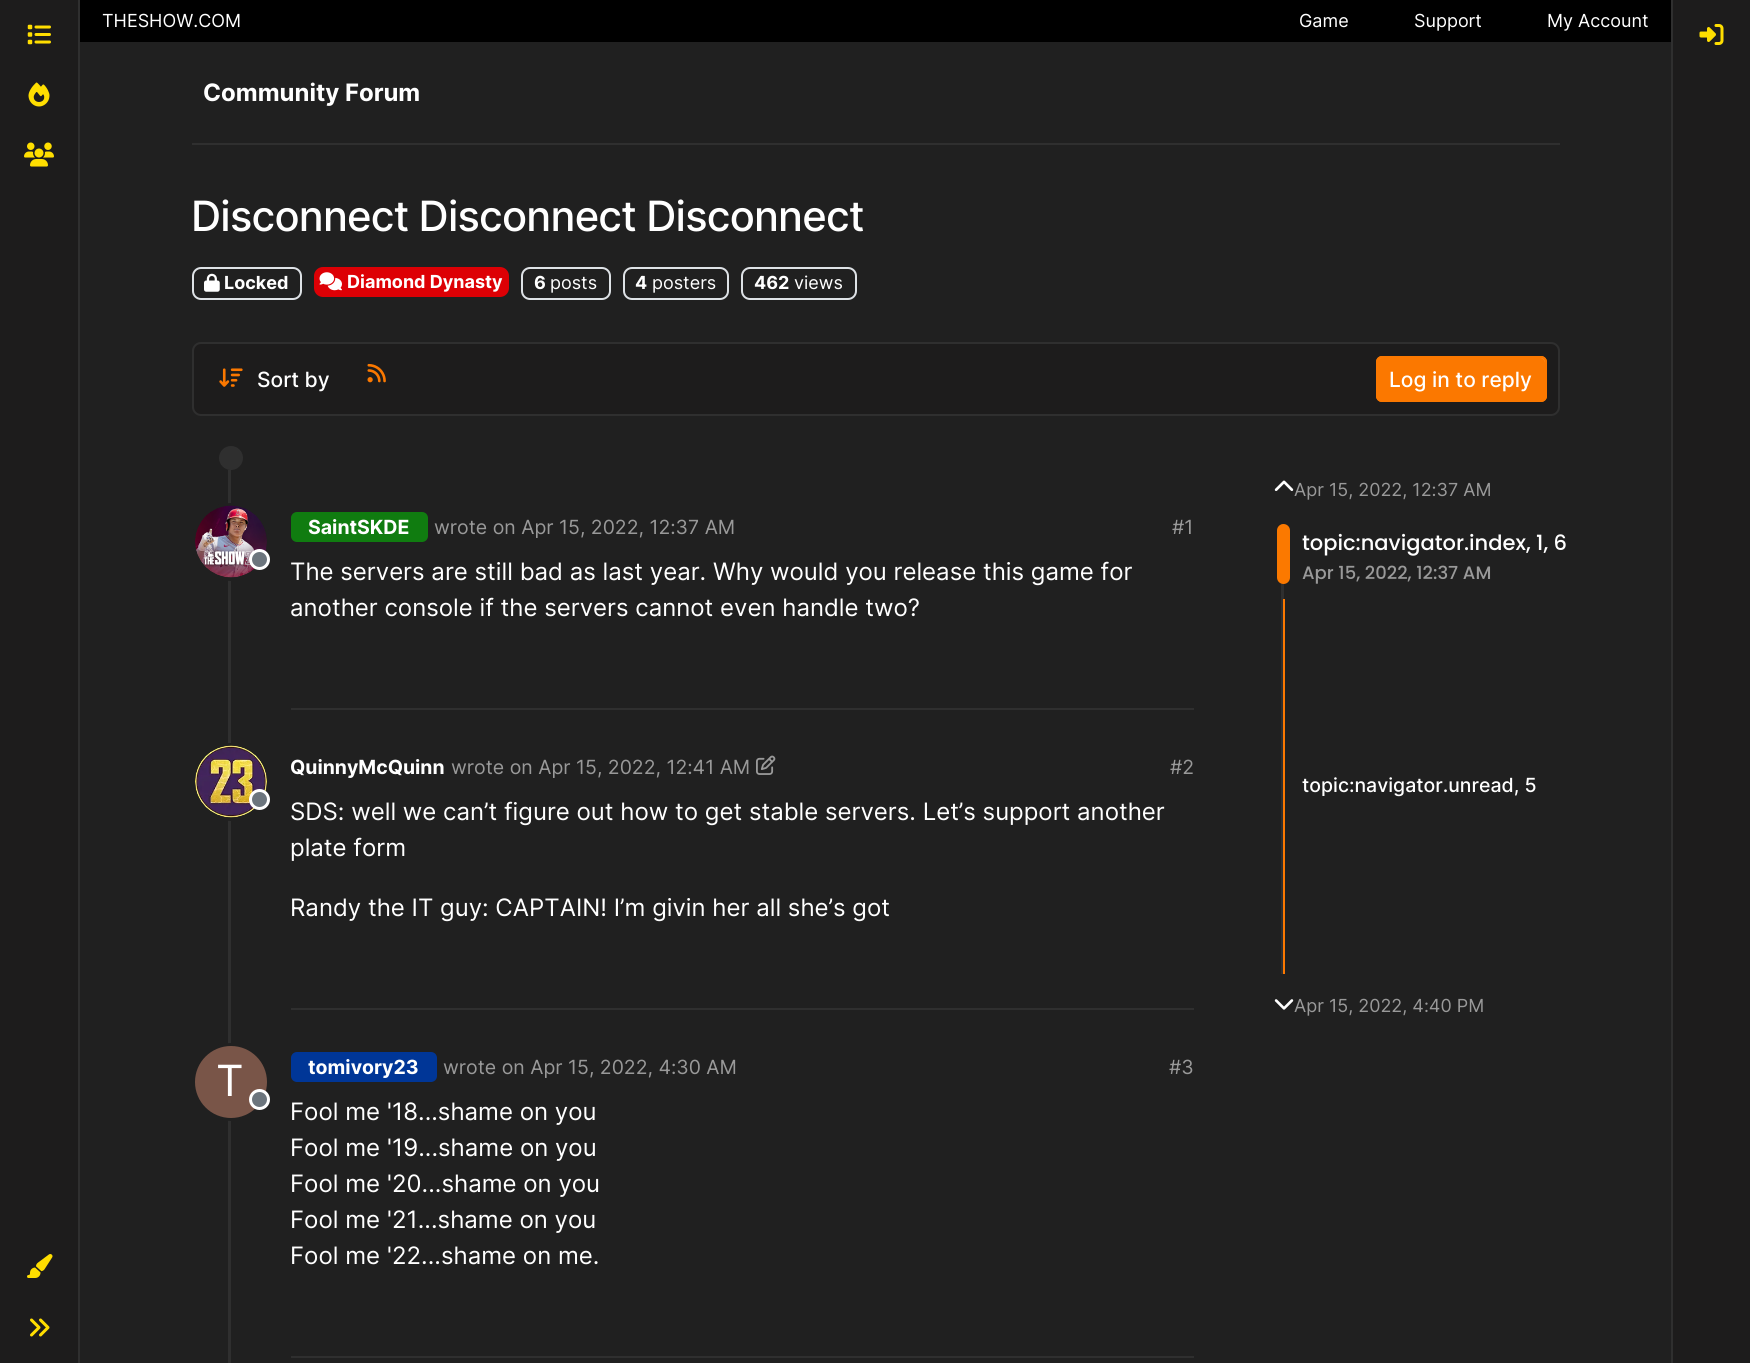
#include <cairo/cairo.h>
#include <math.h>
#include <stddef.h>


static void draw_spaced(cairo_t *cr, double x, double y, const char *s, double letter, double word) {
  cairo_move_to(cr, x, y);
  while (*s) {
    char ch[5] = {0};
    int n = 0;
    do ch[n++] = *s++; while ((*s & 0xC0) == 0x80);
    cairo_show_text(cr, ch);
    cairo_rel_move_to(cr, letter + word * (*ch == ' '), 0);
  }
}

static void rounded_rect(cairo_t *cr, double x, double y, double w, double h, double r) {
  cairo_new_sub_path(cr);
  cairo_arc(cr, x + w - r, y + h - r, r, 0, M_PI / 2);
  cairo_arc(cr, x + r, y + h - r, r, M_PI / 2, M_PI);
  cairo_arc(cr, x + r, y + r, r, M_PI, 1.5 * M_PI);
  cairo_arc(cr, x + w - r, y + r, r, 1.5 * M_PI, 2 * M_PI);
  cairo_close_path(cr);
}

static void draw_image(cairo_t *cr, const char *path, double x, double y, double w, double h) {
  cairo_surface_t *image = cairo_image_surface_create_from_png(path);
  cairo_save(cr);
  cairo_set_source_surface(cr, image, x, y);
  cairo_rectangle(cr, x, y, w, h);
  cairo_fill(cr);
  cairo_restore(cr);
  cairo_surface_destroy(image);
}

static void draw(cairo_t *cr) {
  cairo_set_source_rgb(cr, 32 / 255.0, 32 / 255.0, 32 / 255.0);
  cairo_paint(cr);
  cairo_set_source_rgb(cr, 29 / 255.0, 28 / 255.0, 28 / 255.0);
  cairo_rectangle(cr, 0, 0, 78, 1363);
  cairo_fill(cr);
  cairo_set_source_rgb(cr, 47 / 255.0, 47 / 255.0, 47 / 255.0);
  cairo_rectangle(cr, 78, 0, 2, 1363);
  cairo_fill(cr);
  draw_image(cr, "images/1.png", 27, 24, 24, 21);
  draw_image(cr, "images/2.png", 28, 82, 22, 25);
  draw_image(cr, "images/3.png", 24, 142, 30, 25);
  draw_image(cr, "images/4.png", 27, 1254, 26, 24);
  draw_image(cr, "images/5.png", 30, 1318, 20, 19);
  cairo_set_source_rgb(cr, 0, 0, 0);
  cairo_rectangle(cr, 80, 0, 1591, 42);
  cairo_fill(cr);
  cairo_set_source_rgb(cr, 47 / 255.0, 47 / 255.0, 47 / 255.0);
  cairo_rectangle(cr, 192, 143, 1368, 2);
  cairo_fill(cr);
  rounded_rect(cr, 193, 268, 108, 31, 8);
  cairo_set_source_rgb(cr, 222 / 255.0, 226 / 255.0, 230 / 255.0);
  cairo_stroke(cr);
  draw_image(cr, "images/6.png", 204, 273, 16, 19);
  cairo_set_source_rgb(cr, 221 / 255.0, 0, 5 / 255.0);
  rounded_rect(cr, 314, 267, 195, 30, 9);
  cairo_fill(cr);
  draw_image(cr, "images/7.png", 319, 272, 23, 19);
  rounded_rect(cr, 522, 268, 88, 31, 8);
  cairo_set_source_rgb(cr, 222 / 255.0, 226 / 255.0, 230 / 255.0);
  cairo_stroke(cr);
  rounded_rect(cr, 624, 268, 104, 31, 8);
  cairo_stroke(cr);
  rounded_rect(cr, 742, 268, 114, 31, 8);
  cairo_stroke(cr);
  cairo_set_source_rgb(cr, 29 / 255.0, 28 / 255.0, 28 / 255.0);
  rounded_rect(cr, 193, 343, 1366, 72, 8);
  cairo_fill_preserve(cr);
  cairo_set_source_rgb(cr, 47 / 255.0, 47 / 255.0, 47 / 255.0);
  cairo_stroke(cr);
  draw_image(cr, "images/8.png", 219, 368, 24, 19);
  draw_image(cr, "images/9.png", 367, 363, 19, 20);
  cairo_set_source_rgb(cr, 251 / 255.0, 120 / 255.0, 0);
  rounded_rect(cr, 1376, 356, 171, 46, 6);
  cairo_fill(cr);
  cairo_set_source_rgb(cr, 252 / 255.0, 140 / 255.0, 38 / 255.0);
  cairo_new_path(cr);
  cairo_move_to(cr, 1382, 358);
  cairo_line_to(cr, 1540, 358);
  cairo_curve_to(cr, 1543, 358, 1545, 361, 1545, 363);
  cairo_line_to(cr, 1545, 362);
  cairo_curve_to(cr, 1545, 359, 1543, 357, 1540, 357);
  cairo_line_to(cr, 1382, 357);
  cairo_curve_to(cr, 1379, 357, 1377, 359, 1377, 362);
  cairo_line_to(cr, 1377, 363);
  cairo_curve_to(cr, 1377, 361, 1379, 358, 1382, 358);
  cairo_close_path(cr);
  cairo_fill(cr);
  rounded_rect(cr, 1377, 357, 169, 44, 5);
  cairo_set_source_rgb(cr, 251 / 255.0, 120 / 255.0, 0);
  cairo_stroke(cr);
  cairo_set_source_rgb(cr, 47 / 255.0, 47 / 255.0, 47 / 255.0);
  cairo_rectangle(cr, 228, 470, 3, 893);
  cairo_fill(cr);
  cairo_arc(cr, 231, 458, 12, 0, 2 * M_PI);
  cairo_fill(cr);
  cairo_set_source_rgb(cr, 32 / 255.0, 32 / 255.0, 32 / 255.0);
  cairo_arc(cr, 231, 542, 37.5, 0, 2 * M_PI);
  cairo_fill_preserve(cr);
  cairo_set_line_width(cr, 3);
  cairo_stroke(cr);
  draw_image(cr, "images/10.png", 195, 505, 72, 73);
  cairo_set_source_rgb(cr, 108 / 255.0, 117 / 255.0, 125 / 255.0);
  cairo_arc(cr, 259.5, 559.5, 9, 0, 2 * M_PI);
  cairo_fill_preserve(cr);
  cairo_set_source_rgb(cr, 1, 1, 1);
  cairo_stroke(cr);
  cairo_set_source_rgb(cr, 16 / 255.0, 124 / 255.0, 16 / 255.0);
  rounded_rect(cr, 291, 512, 137, 30, 6);
  cairo_fill(cr);
  cairo_set_source_rgb(cr, 47 / 255.0, 47 / 255.0, 47 / 255.0);
  cairo_rectangle(cr, 291, 708, 903, 2);
  cairo_fill(cr);
  cairo_set_source_rgb(cr, 32 / 255.0, 32 / 255.0, 32 / 255.0);
  cairo_arc(cr, 231, 782, 37.5, 0, 2 * M_PI);
  cairo_fill_preserve(cr);
  cairo_stroke(cr);
  draw_image(cr, "images/11.png", 195, 745, 72, 73);
  cairo_set_source_rgb(cr, 108 / 255.0, 117 / 255.0, 125 / 255.0);
  cairo_arc(cr, 259.5, 799.5, 9, 0, 2 * M_PI);
  cairo_fill_preserve(cr);
  cairo_set_source_rgb(cr, 1, 1, 1);
  cairo_stroke(cr);
  draw_image(cr, "images/12.png", 756, 755, 20, 20);
  cairo_set_source_rgb(cr, 47 / 255.0, 47 / 255.0, 47 / 255.0);
  cairo_rectangle(cr, 291, 1008, 903, 2);
  cairo_fill(cr);
  cairo_arc(cr, 231, 1082, 37.5, 0, 2 * M_PI);
  cairo_set_source_rgb(cr, 32 / 255.0, 32 / 255.0, 32 / 255.0);
  cairo_stroke(cr);
  cairo_set_source_rgb(cr, 121 / 255.0, 85 / 255.0, 72 / 255.0);
  cairo_arc(cr, 231, 1082, 36, 0, 2 * M_PI);
  cairo_fill(cr);
  cairo_set_source_rgb(cr, 108 / 255.0, 117 / 255.0, 125 / 255.0);
  cairo_arc(cr, 259.5, 1099.5, 9, 0, 2 * M_PI);
  cairo_fill_preserve(cr);
  cairo_set_source_rgb(cr, 1, 1, 1);
  cairo_stroke(cr);
  cairo_set_source_rgb(cr, 0, 54 / 255.0, 151 / 255.0);
  rounded_rect(cr, 291, 1052, 146, 30, 6);
  cairo_fill(cr);
  cairo_set_source_rgb(cr, 47 / 255.0, 47 / 255.0, 47 / 255.0);
  cairo_rectangle(cr, 291, 1356, 903, 2);
  cairo_fill(cr);
  draw_image(cr, "images/13.png", 1274, 480, 20, 11);
  cairo_rectangle(cr, 1281, 524, 3, 450);
  cairo_fill(cr);
  cairo_set_source_rgb(cr, 251 / 255.0, 121 / 255.0, 0);
  rounded_rect(cr, 1277, 524, 13, 60, 6.5);
  cairo_fill(cr);
  cairo_set_source_rgb(cr, 251 / 255.0, 120 / 255.0, 0);
  cairo_rectangle(cr, 1283, 599, 2, 375);
  cairo_fill(cr);
  draw_image(cr, "images/14.png", 1274, 999, 20, 11);
  cairo_set_source_rgb(cr, 29 / 255.0, 28 / 255.0, 28 / 255.0);
  cairo_rectangle(cr, 1673, 0, 77, 1363);
  cairo_fill(cr);
  cairo_set_source_rgb(cr, 47 / 255.0, 47 / 255.0, 47 / 255.0);
  cairo_rectangle(cr, 1671, 0, 2, 1363);
  cairo_fill(cr);
  draw_image(cr, "images/15.png", 1699, 24, 25, 21);
  cairo_select_font_face(cr, "Inter", CAIRO_FONT_SLANT_NORMAL, CAIRO_FONT_WEIGHT_NORMAL);
  cairo_set_font_size(cr, 18);
  cairo_set_source_rgb(cr, 1, 1, 1);
  cairo_move_to(cr, 102, 27);
  cairo_show_text(cr, "THESHOW.COM");
  cairo_move_to(cr, 1299, 27);
  cairo_show_text(cr, "Game");
  cairo_move_to(cr, 1414, 27);
  cairo_show_text(cr, "Support");
  cairo_move_to(cr, 1547, 27);
  cairo_show_text(cr, "My Account");
  cairo_select_font_face(cr, "Inter", CAIRO_FONT_SLANT_NORMAL, CAIRO_FONT_WEIGHT_BOLD);
  cairo_set_font_size(cr, 24);
  cairo_move_to(cr, 203, 101);
  cairo_show_text(cr, "Community Forum");
  cairo_select_font_face(cr, "Inter Medium", CAIRO_FONT_SLANT_NORMAL, CAIRO_FONT_WEIGHT_NORMAL);
  cairo_set_font_size(cr, 41.75);
  draw_spaced(cr, 191, 231, "Disconnect Disconnect Disconnect", -0.8, 0);
  cairo_select_font_face(cr, "Inter", CAIRO_FONT_SLANT_NORMAL, CAIRO_FONT_WEIGHT_BOLD);
  cairo_set_font_size(cr, 18);
  cairo_move_to(cr, 224, 289);
  cairo_show_text(cr, "Locked");
  cairo_move_to(cr, 347, 288);
  cairo_show_text(cr, "Diamond Dynasty");
  cairo_move_to(cr, 534, 289);
  cairo_show_text(cr, "6");
  cairo_select_font_face(cr, "Inter", CAIRO_FONT_SLANT_NORMAL, CAIRO_FONT_WEIGHT_NORMAL);
  cairo_move_to(cr, 550, 289);
  cairo_show_text(cr, "posts");
  cairo_select_font_face(cr, "Inter", CAIRO_FONT_SLANT_NORMAL, CAIRO_FONT_WEIGHT_BOLD);
  cairo_move_to(cr, 635, 289);
  cairo_show_text(cr, "4");
  cairo_select_font_face(cr, "Inter", CAIRO_FONT_SLANT_NORMAL, CAIRO_FONT_WEIGHT_NORMAL);
  cairo_move_to(cr, 652, 289);
  cairo_show_text(cr, "posters");
  cairo_select_font_face(cr, "Inter", CAIRO_FONT_SLANT_NORMAL, CAIRO_FONT_WEIGHT_BOLD);
  cairo_move_to(cr, 754, 289);
  cairo_show_text(cr, "462");
  cairo_select_font_face(cr, "Inter", CAIRO_FONT_SLANT_NORMAL, CAIRO_FONT_WEIGHT_NORMAL);
  cairo_move_to(cr, 794, 289);
  cairo_show_text(cr, "views");
  cairo_select_font_face(cr, "Inter Medium", CAIRO_FONT_SLANT_NORMAL, CAIRO_FONT_WEIGHT_NORMAL);
  cairo_set_font_size(cr, 21);
  cairo_move_to(cr, 257, 387);
  cairo_show_text(cr, "Sort by");
  cairo_move_to(cr, 1389, 387);
  cairo_show_text(cr, "Log in to reply");
  cairo_select_font_face(cr, "Inter", CAIRO_FONT_SLANT_NORMAL, CAIRO_FONT_WEIGHT_BOLD);
  cairo_set_font_size(cr, 19.5);
  cairo_move_to(cr, 308, 534);
  cairo_show_text(cr, "SaintSKDE");
  cairo_select_font_face(cr, "Inter", CAIRO_FONT_SLANT_NORMAL, CAIRO_FONT_WEIGHT_NORMAL);
  cairo_set_source_rgb(cr, 153 / 255.0, 153 / 255.0, 153 / 255.0);
  cairo_move_to(cr, 434, 534);
  cairo_show_text(cr, "wrote on Apr 15, 2022, 12:37 AM");
  cairo_move_to(cr, 1172, 534);
  cairo_show_text(cr, "#1");
  cairo_set_font_size(cr, 24);
  cairo_set_source_rgb(cr, 1, 1, 1);
  cairo_move_to(cr, 290, 580);
  cairo_show_text(cr, "The servers are still bad as last year. Why would you release this game for");
  cairo_move_to(cr, 290, 616);
  cairo_show_text(cr, "another console if the servers cannot even handle two?");
  cairo_select_font_face(cr, "Inter", CAIRO_FONT_SLANT_NORMAL, CAIRO_FONT_WEIGHT_BOLD);
  cairo_set_font_size(cr, 19.5);
  cairo_move_to(cr, 290, 774);
  cairo_show_text(cr, "QuinnyMcQuinn");
  cairo_select_font_face(cr, "Inter", CAIRO_FONT_SLANT_NORMAL, CAIRO_FONT_WEIGHT_NORMAL);
  cairo_set_source_rgb(cr, 153 / 255.0, 153 / 255.0, 153 / 255.0);
  cairo_move_to(cr, 451, 774);
  cairo_show_text(cr, "wrote on Apr 15, 2022, 12:41 AM");
  cairo_move_to(cr, 1170, 774);
  cairo_show_text(cr, "#2");
  cairo_set_font_size(cr, 24);
  cairo_set_source_rgb(cr, 1, 1, 1);
  cairo_move_to(cr, 290, 820);
  cairo_show_text(cr, "SDS: well we can’t figure out how to get stable servers. Let’s support another");
  cairo_move_to(cr, 290, 856);
  cairo_show_text(cr, "plate form");
  cairo_move_to(cr, 290, 916);
  cairo_show_text(cr, "Randy the IT guy: CAPTAIN! I’m givin her all she’s got");
  cairo_set_font_size(cr, 43);
  cairo_move_to(cr, 216, 1096);
  cairo_show_text(cr, "T");
  cairo_select_font_face(cr, "Inter", CAIRO_FONT_SLANT_NORMAL, CAIRO_FONT_WEIGHT_BOLD);
  cairo_set_font_size(cr, 19.5);
  cairo_move_to(cr, 308, 1074);
  cairo_show_text(cr, "tomivory23");
  cairo_select_font_face(cr, "Inter", CAIRO_FONT_SLANT_NORMAL, CAIRO_FONT_WEIGHT_NORMAL);
  cairo_set_source_rgb(cr, 153 / 255.0, 153 / 255.0, 153 / 255.0);
  cairo_move_to(cr, 443, 1074);
  cairo_show_text(cr, "wrote on Apr 15, 2022, 4:30 AM");
  cairo_move_to(cr, 1169, 1074);
  cairo_show_text(cr, "#3");
  cairo_set_font_size(cr, 24);
  cairo_set_source_rgb(cr, 1, 1, 1);
  cairo_move_to(cr, 290, 1120);
  cairo_show_text(cr, "Fool me '18...shame on you");
  cairo_move_to(cr, 290, 1156);
  cairo_show_text(cr, "Fool me '19...shame on you");
  cairo_move_to(cr, 290, 1192);
  cairo_show_text(cr, "Fool me '20...shame on you");
  cairo_move_to(cr, 290, 1228);
  cairo_show_text(cr, "Fool me '21...shame on you");
  cairo_move_to(cr, 290, 1264);
  cairo_show_text(cr, "Fool me '22...shame on me.");
  cairo_set_font_size(cr, 18);
  cairo_set_source_rgb(cr, 153 / 255.0, 153 / 255.0, 153 / 255.0);
  cairo_move_to(cr, 1294, 496);
  cairo_show_text(cr, "Apr 15, 2022, 12:37 AM");
  cairo_select_font_face(cr, "Poppins Medium", CAIRO_FONT_SLANT_NORMAL, CAIRO_FONT_WEIGHT_NORMAL);
  cairo_set_font_size(cr, 21);
  cairo_set_source_rgb(cr, 1, 1, 1);
  cairo_move_to(cr, 1302, 550);
  cairo_show_text(cr, "topic:navigator.index, 1, 6");
  cairo_set_font_size(cr, 18);
  cairo_set_source_rgb(cr, 153 / 255.0, 153 / 255.0, 153 / 255.0);
  cairo_move_to(cr, 1302, 579);
  cairo_show_text(cr, "Apr 15, 2022, 12:37 AM");
  cairo_select_font_face(cr, "Inter Medium", CAIRO_FONT_SLANT_NORMAL, CAIRO_FONT_WEIGHT_NORMAL);
  cairo_set_font_size(cr, 19.5);
  cairo_set_source_rgb(cr, 1, 1, 1);
  cairo_move_to(cr, 1302, 792);
  cairo_show_text(cr, "topic:navigator.unread, 5");
  cairo_select_font_face(cr, "Inter", CAIRO_FONT_SLANT_NORMAL, CAIRO_FONT_WEIGHT_NORMAL);
  cairo_set_font_size(cr, 18);
  cairo_set_source_rgb(cr, 153 / 255.0, 153 / 255.0, 153 / 255.0);
  cairo_move_to(cr, 1294, 1012);
  cairo_show_text(cr, "Apr 15, 2022, 4:40 PM");
}

int main(void) {
  cairo_surface_t *surface = cairo_image_surface_create(CAIRO_FORMAT_RGB24, 1750, 1363);
  cairo_t *cr = cairo_create(surface);
  cairo_font_options_t *options = cairo_font_options_create();
  cairo_font_options_set_hint_metrics(options, CAIRO_HINT_METRICS_OFF);
  cairo_font_options_set_hint_style(options, CAIRO_HINT_STYLE_NONE);
  cairo_set_font_options(cr, options);
  cairo_set_miter_limit(cr, 4);
  draw(cr);
  cairo_surface_write_to_png(surface, "out.png");
  cairo_font_options_destroy(options);
  cairo_destroy(cr);
  cairo_surface_destroy(surface);
  return 0;
}
